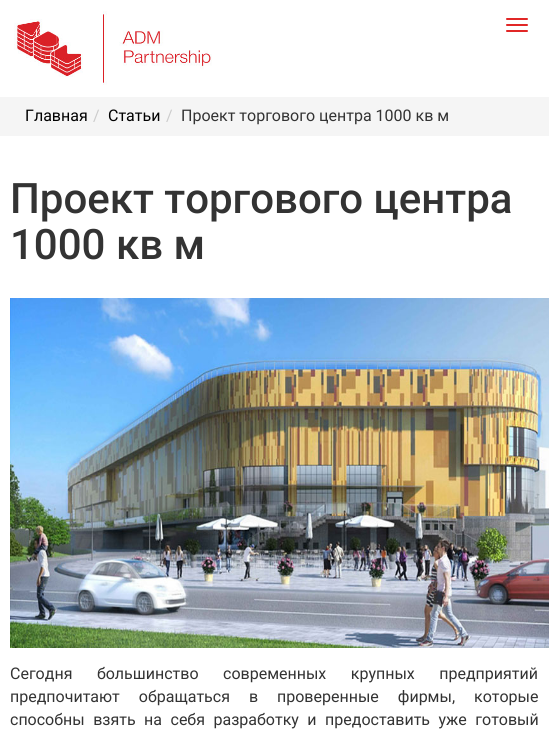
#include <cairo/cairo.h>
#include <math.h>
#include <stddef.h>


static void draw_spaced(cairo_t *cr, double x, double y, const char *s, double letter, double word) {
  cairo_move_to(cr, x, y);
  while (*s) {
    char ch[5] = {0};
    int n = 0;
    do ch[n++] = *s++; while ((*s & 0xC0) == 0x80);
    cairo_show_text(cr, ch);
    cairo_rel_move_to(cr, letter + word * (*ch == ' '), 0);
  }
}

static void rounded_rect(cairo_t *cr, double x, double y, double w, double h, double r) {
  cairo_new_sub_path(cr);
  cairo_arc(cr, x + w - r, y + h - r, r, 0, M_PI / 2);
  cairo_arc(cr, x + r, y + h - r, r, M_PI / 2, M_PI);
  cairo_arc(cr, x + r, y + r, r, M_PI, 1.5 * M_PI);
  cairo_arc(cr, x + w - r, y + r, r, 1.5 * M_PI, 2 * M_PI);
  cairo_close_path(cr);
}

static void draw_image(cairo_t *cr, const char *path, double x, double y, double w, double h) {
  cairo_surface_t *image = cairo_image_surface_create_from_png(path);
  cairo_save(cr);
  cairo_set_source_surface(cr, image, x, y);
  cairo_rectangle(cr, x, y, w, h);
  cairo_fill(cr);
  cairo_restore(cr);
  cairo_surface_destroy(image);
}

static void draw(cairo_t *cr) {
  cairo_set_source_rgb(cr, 1, 1, 1);
  cairo_paint(cr);
  draw_image(cr, "images/1.png", 14, 11, 198, 74);
  cairo_set_source_rgb(cr, 225 / 255.0, 39 / 255.0, 38 / 255.0);
  rounded_rect(cr, 506, 18, 22, 2, 1);
  cairo_fill(cr);
  rounded_rect(cr, 506, 24, 22, 2, 1);
  cairo_fill(cr);
  rounded_rect(cr, 506, 30, 22, 2, 1);
  cairo_fill(cr);
  cairo_set_source_rgb(cr, 245 / 255.0, 245 / 255.0, 245 / 255.0);
  cairo_rectangle(cr, 0, 97, 549, 39);
  cairo_fill(cr);
  draw_image(cr, "images/2.png", 10, 298, 539, 350);
  cairo_select_font_face(cr, "Roboto", CAIRO_FONT_SLANT_NORMAL, CAIRO_FONT_WEIGHT_NORMAL);
  cairo_set_font_size(cr, 16);
  cairo_set_source_rgb(cr, 0, 0, 0);
  cairo_move_to(cr, 25, 121);
  cairo_show_text(cr, "Главная");
  cairo_set_source_rgb(cr, 204 / 255.0, 204 / 255.0, 204 / 255.0);
  cairo_move_to(cr, 93, 121);
  cairo_show_text(cr, "/");
  cairo_set_source_rgb(cr, 0, 0, 0);
  cairo_move_to(cr, 108, 121);
  cairo_show_text(cr, "Статьи");
  cairo_set_source_rgb(cr, 204 / 255.0, 204 / 255.0, 204 / 255.0);
  cairo_move_to(cr, 166, 121);
  cairo_show_text(cr, "/");
  cairo_set_source_rgb(cr, 51 / 255.0, 51 / 255.0, 51 / 255.0);
  cairo_move_to(cr, 181, 121);
  cairo_show_text(cr, "Проект торгового центра 1000 кв м");
  cairo_select_font_face(cr, "Roboto Medium", CAIRO_FONT_SLANT_NORMAL, CAIRO_FONT_WEIGHT_NORMAL);
  cairo_set_font_size(cr, 42);
  cairo_move_to(cr, 10, 213);
  cairo_show_text(cr, "Проект торгового центра");
  cairo_move_to(cr, 10, 259);
  cairo_show_text(cr, "1000 кв м");
  cairo_select_font_face(cr, "Roboto", CAIRO_FONT_SLANT_NORMAL, CAIRO_FONT_WEIGHT_NORMAL);
  cairo_set_font_size(cr, 16);
  draw_spaced(cr, 10, 679, "Сегодня большинство современных крупных предприятий", 0, 20.5);
  draw_spaced(cr, 10, 702, "предпочитают обращаться в проверенные фирмы, которые", 0, 15);
  draw_spaced(cr, 10, 725, "способны взять на себя разработку и предоставить уже готовый", 0, 4.5);
}

int main(void) {
  cairo_surface_t *surface = cairo_image_surface_create(CAIRO_FORMAT_RGB24, 549, 743);
  cairo_t *cr = cairo_create(surface);
  cairo_font_options_t *options = cairo_font_options_create();
  cairo_font_options_set_hint_metrics(options, CAIRO_HINT_METRICS_OFF);
  cairo_font_options_set_hint_style(options, CAIRO_HINT_STYLE_NONE);
  cairo_set_font_options(cr, options);
  cairo_set_miter_limit(cr, 4);
  draw(cr);
  cairo_surface_write_to_png(surface, "out.png");
  cairo_font_options_destroy(options);
  cairo_destroy(cr);
  cairo_surface_destroy(surface);
  return 0;
}
